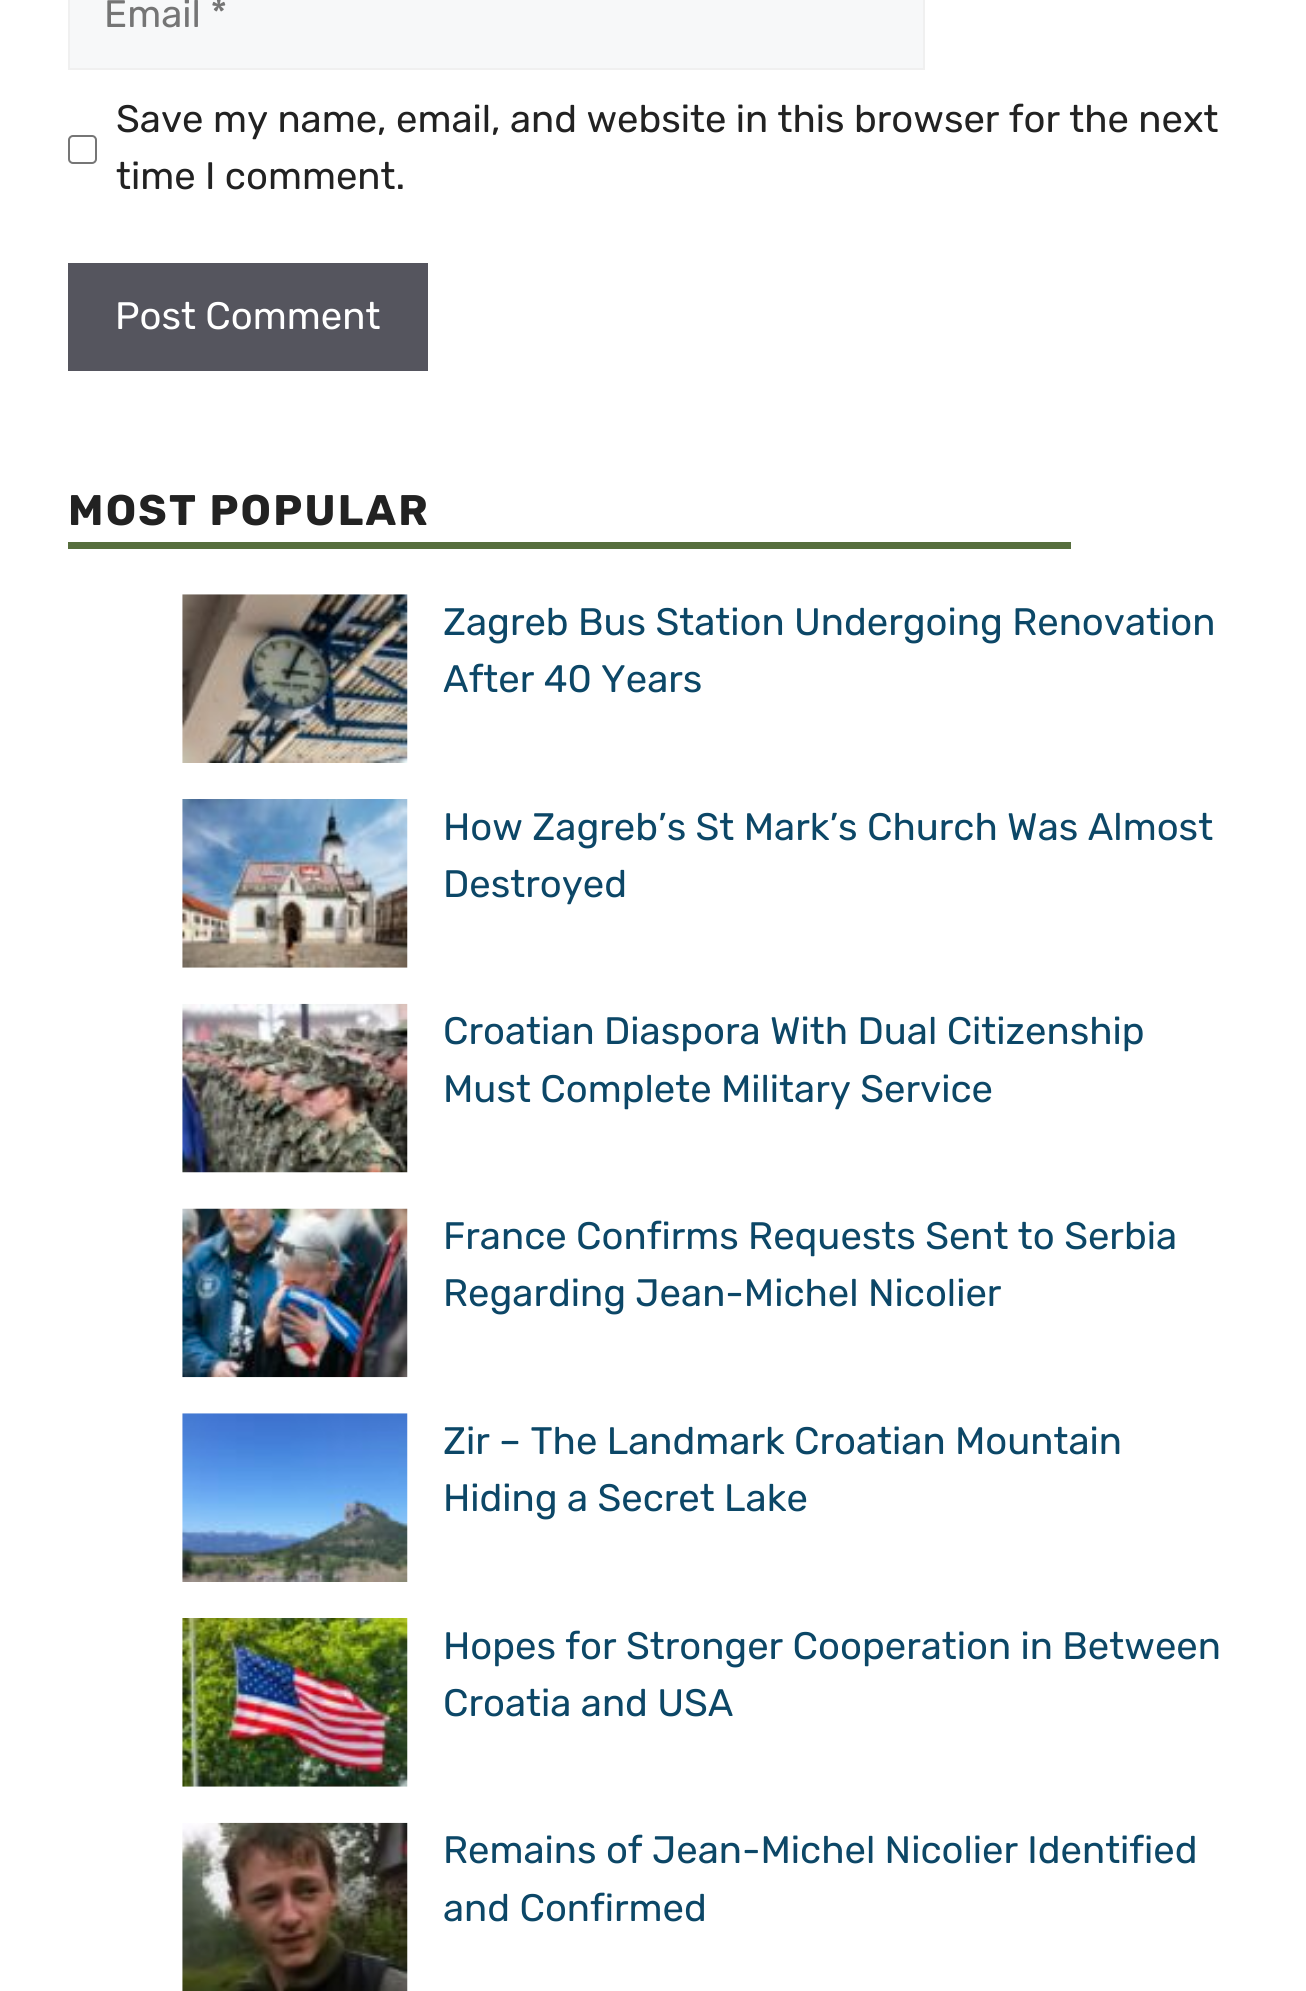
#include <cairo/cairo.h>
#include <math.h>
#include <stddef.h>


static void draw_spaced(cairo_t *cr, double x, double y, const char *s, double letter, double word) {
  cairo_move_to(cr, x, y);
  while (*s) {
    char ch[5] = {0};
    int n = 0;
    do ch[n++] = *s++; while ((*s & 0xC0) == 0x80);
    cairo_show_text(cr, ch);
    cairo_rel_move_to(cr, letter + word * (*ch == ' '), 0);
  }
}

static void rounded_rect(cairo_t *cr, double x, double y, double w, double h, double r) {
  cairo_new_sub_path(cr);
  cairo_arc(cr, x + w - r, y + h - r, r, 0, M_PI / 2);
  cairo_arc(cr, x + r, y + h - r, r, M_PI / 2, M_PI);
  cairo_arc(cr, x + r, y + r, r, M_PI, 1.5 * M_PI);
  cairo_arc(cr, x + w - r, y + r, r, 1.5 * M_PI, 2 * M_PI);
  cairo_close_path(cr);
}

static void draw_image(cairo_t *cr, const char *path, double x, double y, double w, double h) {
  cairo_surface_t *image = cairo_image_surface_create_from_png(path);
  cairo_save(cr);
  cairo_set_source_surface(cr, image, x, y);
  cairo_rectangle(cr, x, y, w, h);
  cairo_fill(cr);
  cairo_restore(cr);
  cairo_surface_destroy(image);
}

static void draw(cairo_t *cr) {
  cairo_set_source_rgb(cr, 1, 1, 1);
  cairo_paint(cr);
  cairo_set_source_rgb(cr, 247 / 255.0, 248 / 255.0, 249 / 255.0);
  cairo_rectangle(cr, 69, -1, 855, 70);
  cairo_fill_preserve(cr);
  cairo_set_source_rgb(cr, 240 / 255.0, 240 / 255.0, 240 / 255.0);
  cairo_stroke(cr);
  rounded_rect(cr, 69, 136, 27, 27, 4);
  cairo_set_source_rgb(cr, 118 / 255.0, 118 / 255.0, 118 / 255.0);
  cairo_stroke(cr);
  cairo_set_source_rgb(cr, 85 / 255.0, 85 / 255.0, 94 / 255.0);
  cairo_rectangle(cr, 68, 263, 360, 108);
  cairo_fill(cr);
  cairo_set_source_rgb(cr, 86 / 255.0, 110 / 255.0, 61 / 255.0);
  cairo_rectangle(cr, 68, 542, 1003, 7);
  cairo_fill(cr);
  draw_image(cr, "images/1.png", 182, 594, 226, 169);
  draw_image(cr, "images/2.png", 182, 799, 226, 169);
  draw_image(cr, "images/3.png", 182, 1003, 226, 170);
  draw_image(cr, "images/4.png", 182, 1208, 226, 170);
  draw_image(cr, "images/5.png", 182, 1413, 226, 169);
  draw_image(cr, "images/6.png", 182, 1618, 226, 169);
  draw_image(cr, "images/7.png", 182, 1822, 226, 169);
  cairo_select_font_face(cr, "Rubik", CAIRO_FONT_SLANT_NORMAL, CAIRO_FONT_WEIGHT_NORMAL);
  cairo_set_font_size(cr, 38.25);
  cairo_set_source_rgb(cr, 117 / 255.0, 117 / 255.0, 117 / 255.0);
  cairo_move_to(cr, 104, 27);
  cairo_show_text(cr, "Email *");
  cairo_set_source_rgb(cr, 34 / 255.0, 34 / 255.0, 34 / 255.0);
  cairo_move_to(cr, 116, 132);
  cairo_show_text(cr, "Save my name, email, and website in this browser for the next");
  cairo_move_to(cr, 116, 189);
  cairo_show_text(cr, "time I comment.");
  cairo_set_source_rgb(cr, 1, 1, 1);
  cairo_move_to(cr, 115, 329);
  cairo_show_text(cr, "Post Comment");
  cairo_select_font_face(cr, "Rubik", CAIRO_FONT_SLANT_NORMAL, CAIRO_FONT_WEIGHT_BOLD);
  cairo_set_font_size(cr, 42.75);
  cairo_set_source_rgb(cr, 34 / 255.0, 34 / 255.0, 34 / 255.0);
  draw_spaced(cr, 68, 525, "MOST POPULAR", 2.25, 0);
  cairo_select_font_face(cr, "Rubik", CAIRO_FONT_SLANT_NORMAL, CAIRO_FONT_WEIGHT_NORMAL);
  cairo_set_font_size(cr, 38.25);
  cairo_set_source_rgb(cr, 12 / 255.0, 71 / 255.0, 103 / 255.0);
  cairo_move_to(cr, 443, 635);
  cairo_show_text(cr, "Zagreb Bus Station Undergoing Renovation");
  cairo_move_to(cr, 443, 692);
  cairo_show_text(cr, "After 40 Years");
  cairo_move_to(cr, 443, 840);
  cairo_show_text(cr, "How Zagreb’s St Mark’s Church Was Almost");
  cairo_move_to(cr, 443, 897);
  cairo_show_text(cr, "Destroyed");
  cairo_move_to(cr, 443, 1044);
  cairo_show_text(cr, "Croatian Diaspora With Dual Citizenship");
  cairo_move_to(cr, 443, 1102);
  cairo_show_text(cr, "Must Complete Military Service");
  cairo_move_to(cr, 443, 1249);
  cairo_show_text(cr, "France Confirms Requests Sent to Serbia");
  cairo_move_to(cr, 443, 1306);
  cairo_show_text(cr, "Regarding Jean-Michel Nicolier");
  cairo_move_to(cr, 443, 1454);
  cairo_show_text(cr, "Zir – The Landmark Croatian Mountain");
  cairo_move_to(cr, 443, 1511);
  cairo_show_text(cr, "Hiding a Secret Lake");
  cairo_move_to(cr, 443, 1659);
  cairo_show_text(cr, "Hopes for Stronger Cooperation in Between");
  cairo_move_to(cr, 443, 1716);
  cairo_show_text(cr, "Croatia and USA");
  cairo_move_to(cr, 443, 1863);
  cairo_show_text(cr, "Remains of Jean-Michel Nicolier Identified");
  cairo_move_to(cr, 443, 1921);
  cairo_show_text(cr, "and Confirmed");
}

int main(void) {
  cairo_surface_t *surface = cairo_image_surface_create(CAIRO_FORMAT_RGB24, 1306, 1991);
  cairo_t *cr = cairo_create(surface);
  cairo_font_options_t *options = cairo_font_options_create();
  cairo_font_options_set_hint_metrics(options, CAIRO_HINT_METRICS_OFF);
  cairo_font_options_set_hint_style(options, CAIRO_HINT_STYLE_NONE);
  cairo_set_font_options(cr, options);
  cairo_set_miter_limit(cr, 4);
  draw(cr);
  cairo_surface_write_to_png(surface, "out.png");
  cairo_font_options_destroy(options);
  cairo_destroy(cr);
  cairo_surface_destroy(surface);
  return 0;
}
